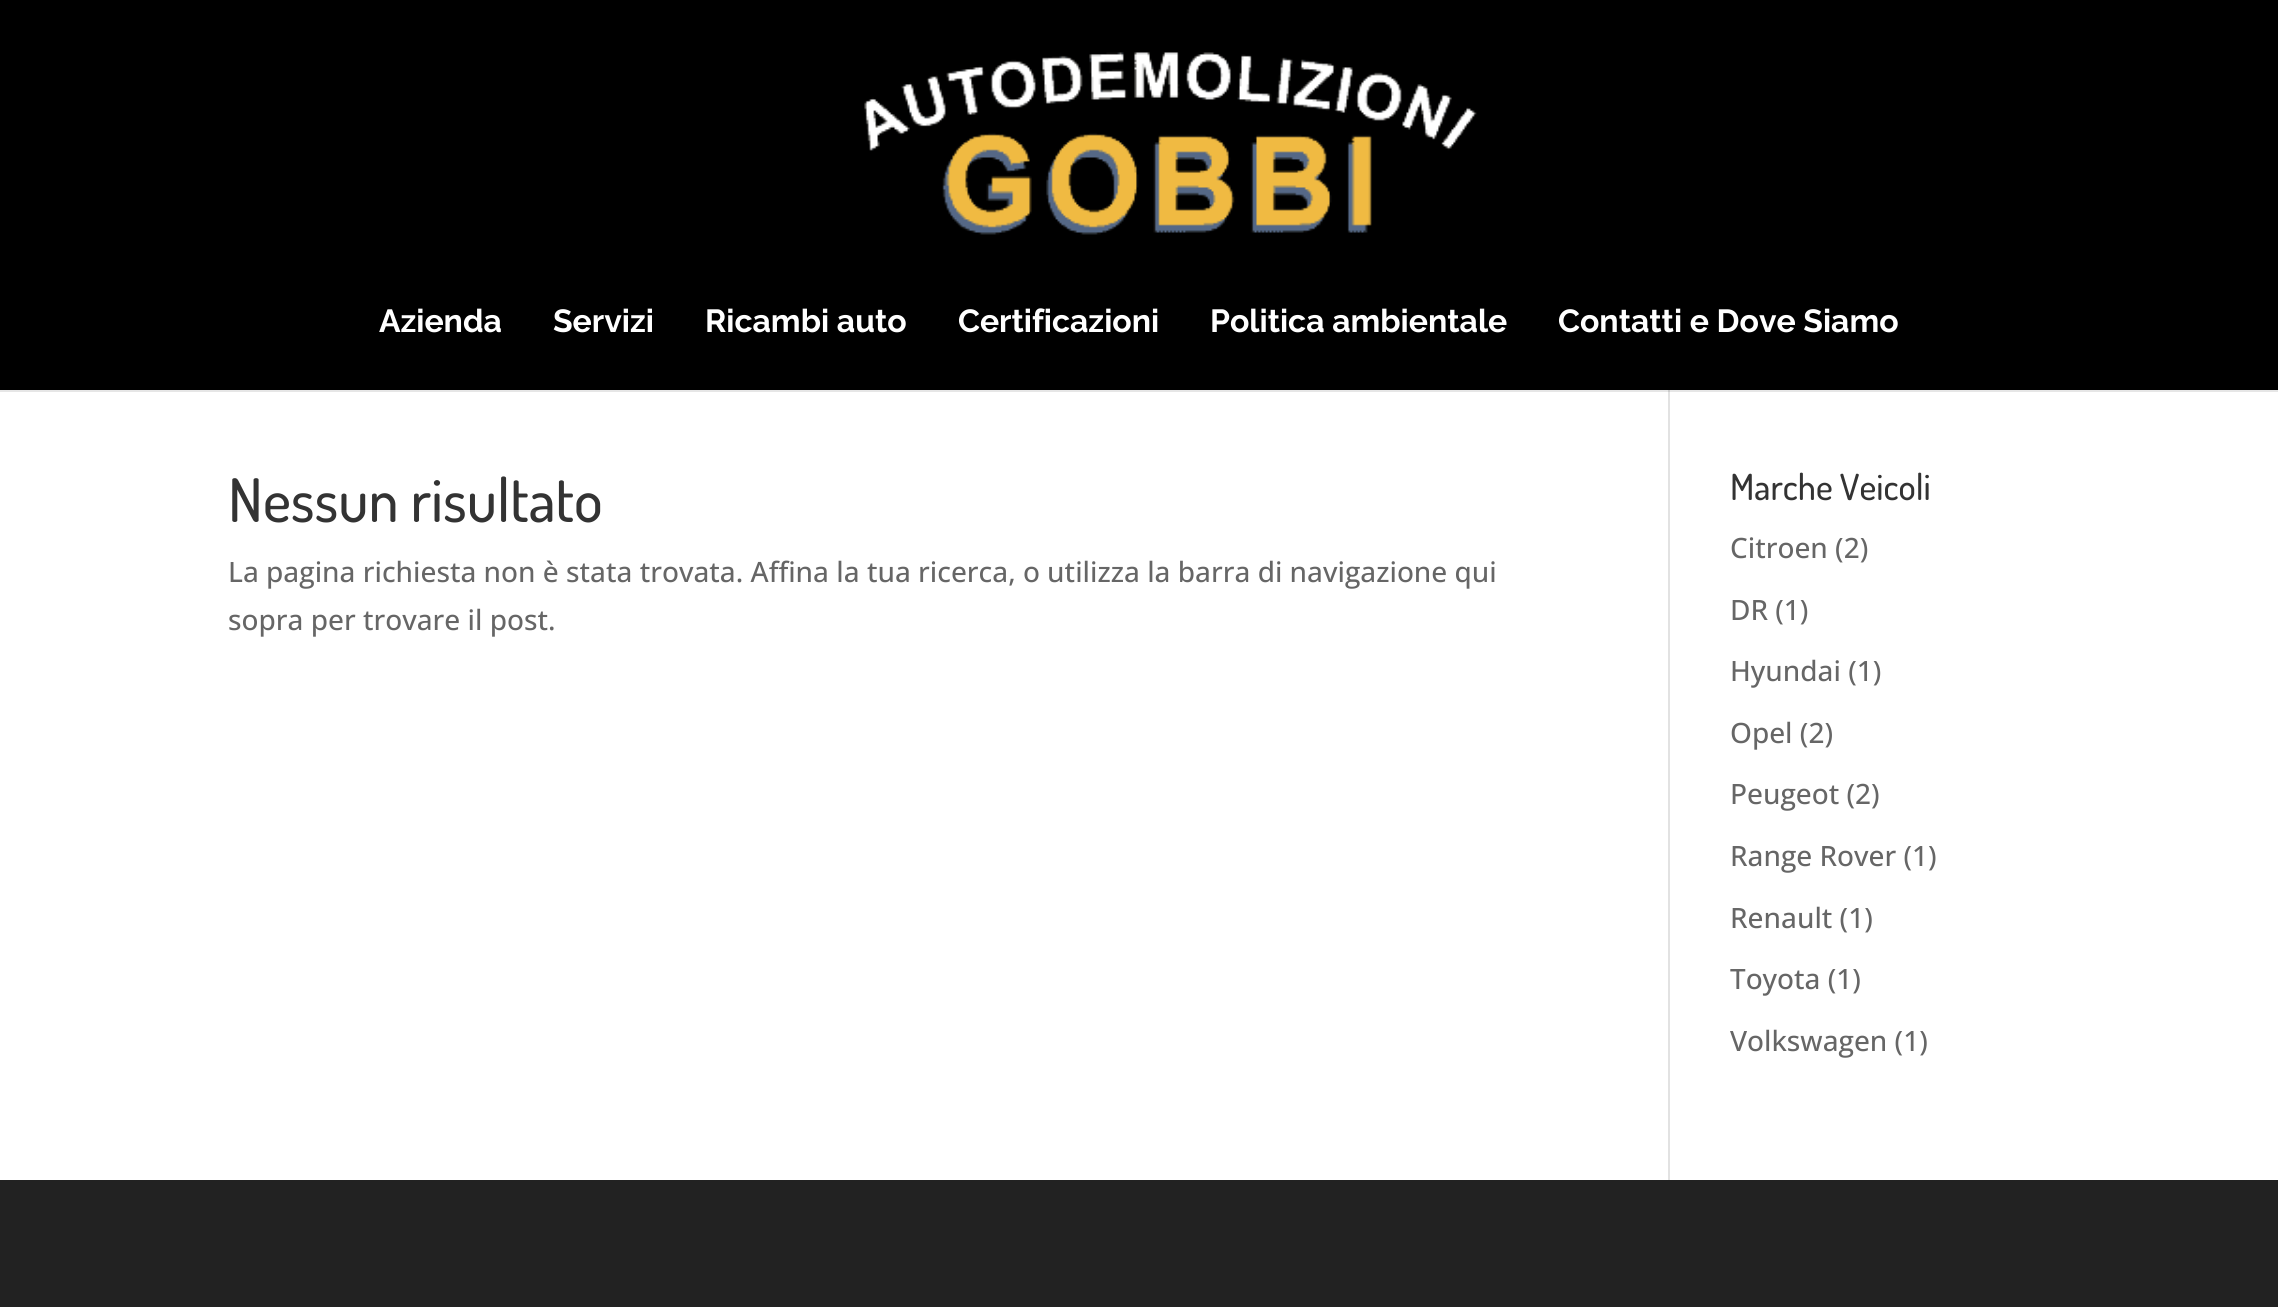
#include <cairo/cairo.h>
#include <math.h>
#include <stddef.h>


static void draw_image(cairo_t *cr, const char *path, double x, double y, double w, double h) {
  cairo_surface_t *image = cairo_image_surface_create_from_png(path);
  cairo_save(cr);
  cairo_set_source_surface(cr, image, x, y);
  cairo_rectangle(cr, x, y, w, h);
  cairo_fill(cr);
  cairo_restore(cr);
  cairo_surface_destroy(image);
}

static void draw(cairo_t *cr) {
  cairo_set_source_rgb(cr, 1, 1, 1);
  cairo_paint(cr);
  cairo_set_source_rgb(cr, 230 / 255.0, 230 / 255.0, 230 / 255.0);
  cairo_rectangle(cr, 0, 390, 2278, 2);
  cairo_fill(cr);
  cairo_set_source_rgb(cr, 0, 0, 0);
  cairo_rectangle(cr, 0, 0, 2278, 390);
  cairo_fill(cr);
  draw_image(cr, "images/1.png", 864, 52, 613, 183);
  cairo_set_source_rgb(cr, 226 / 255.0, 226 / 255.0, 226 / 255.0);
  cairo_rectangle(cr, 1668, 392, 2, 788);
  cairo_fill(cr);
  cairo_set_source_rgb(cr, 203 / 255.0, 203 / 255.0, 203 / 255.0);
  cairo_rectangle(cr, 1668, 390, 2, 2);
  cairo_fill(cr);
  cairo_set_source_rgb(cr, 34 / 255.0, 34 / 255.0, 34 / 255.0);
  cairo_rectangle(cr, 0, 1180, 2278, 127);
  cairo_fill(cr);
  cairo_select_font_face(cr, "Raleway", CAIRO_FONT_SLANT_NORMAL, CAIRO_FONT_WEIGHT_BOLD);
  cairo_set_font_size(cr, 32);
  cairo_set_source_rgb(cr, 1, 1, 1);
  cairo_move_to(cr, 379, 332);
  cairo_show_text(cr, "Azienda");
  cairo_move_to(cr, 553, 332);
  cairo_show_text(cr, "Servizi");
  cairo_move_to(cr, 705, 332);
  cairo_show_text(cr, "Ricambi auto");
  cairo_move_to(cr, 958, 332);
  cairo_show_text(cr, "Certificazioni");
  cairo_move_to(cr, 1210, 332);
  cairo_show_text(cr, "Politica ambientale");
  cairo_move_to(cr, 1558, 332);
  cairo_show_text(cr, "Contatti e Dove Siamo");
  cairo_select_font_face(cr, "Dosis Medium", CAIRO_FONT_SLANT_NORMAL, CAIRO_FONT_WEIGHT_NORMAL);
  cairo_set_font_size(cr, 60);
  cairo_set_source_rgb(cr, 51 / 255.0, 51 / 255.0, 51 / 255.0);
  cairo_move_to(cr, 228, 522);
  cairo_show_text(cr, "Nessun risultato");
  cairo_select_font_face(cr, "Open Sans Medium", CAIRO_FONT_SLANT_NORMAL, CAIRO_FONT_WEIGHT_NORMAL);
  cairo_set_font_size(cr, 28);
  cairo_set_source_rgb(cr, 102 / 255.0, 102 / 255.0, 102 / 255.0);
  cairo_move_to(cr, 228, 582);
  cairo_show_text(cr, "La pagina richiesta non è stata trovata. Affina la tua ricerca, o utilizza la barra di navigazione qui");
  cairo_move_to(cr, 228, 630);
  cairo_show_text(cr, "sopra per trovare il post.");
  cairo_select_font_face(cr, "Dosis Medium", CAIRO_FONT_SLANT_NORMAL, CAIRO_FONT_WEIGHT_NORMAL);
  cairo_set_font_size(cr, 36);
  cairo_set_source_rgb(cr, 51 / 255.0, 51 / 255.0, 51 / 255.0);
  cairo_move_to(cr, 1730, 500);
  cairo_show_text(cr, "Marche Veicoli");
  cairo_select_font_face(cr, "Open Sans Medium", CAIRO_FONT_SLANT_NORMAL, CAIRO_FONT_WEIGHT_NORMAL);
  cairo_set_font_size(cr, 28);
  cairo_set_source_rgb(cr, 102 / 255.0, 102 / 255.0, 102 / 255.0);
  cairo_move_to(cr, 1730, 558);
  cairo_show_text(cr, "Citroen (2)");
  cairo_move_to(cr, 1730, 620);
  cairo_show_text(cr, "DR (1)");
  cairo_move_to(cr, 1730, 681);
  cairo_show_text(cr, "Hyundai (1)");
  cairo_move_to(cr, 1730, 743);
  cairo_show_text(cr, "Opel (2)");
  cairo_move_to(cr, 1730, 804);
  cairo_show_text(cr, "Peugeot (2)");
  cairo_move_to(cr, 1730, 866);
  cairo_show_text(cr, "Range Rover (1)");
  cairo_move_to(cr, 1730, 928);
  cairo_show_text(cr, "Renault (1)");
  cairo_move_to(cr, 1730, 989);
  cairo_show_text(cr, "Toyota (1)");
  cairo_move_to(cr, 1730, 1051);
  cairo_show_text(cr, "Volkswagen (1)");
}

int main(void) {
  cairo_surface_t *surface = cairo_image_surface_create(CAIRO_FORMAT_RGB24, 2278, 1307);
  cairo_t *cr = cairo_create(surface);
  cairo_font_options_t *options = cairo_font_options_create();
  cairo_font_options_set_hint_metrics(options, CAIRO_HINT_METRICS_OFF);
  cairo_font_options_set_hint_style(options, CAIRO_HINT_STYLE_NONE);
  cairo_set_font_options(cr, options);
  cairo_set_miter_limit(cr, 4);
  draw(cr);
  cairo_surface_write_to_png(surface, "out.png");
  cairo_font_options_destroy(options);
  cairo_destroy(cr);
  cairo_surface_destroy(surface);
  return 0;
}
